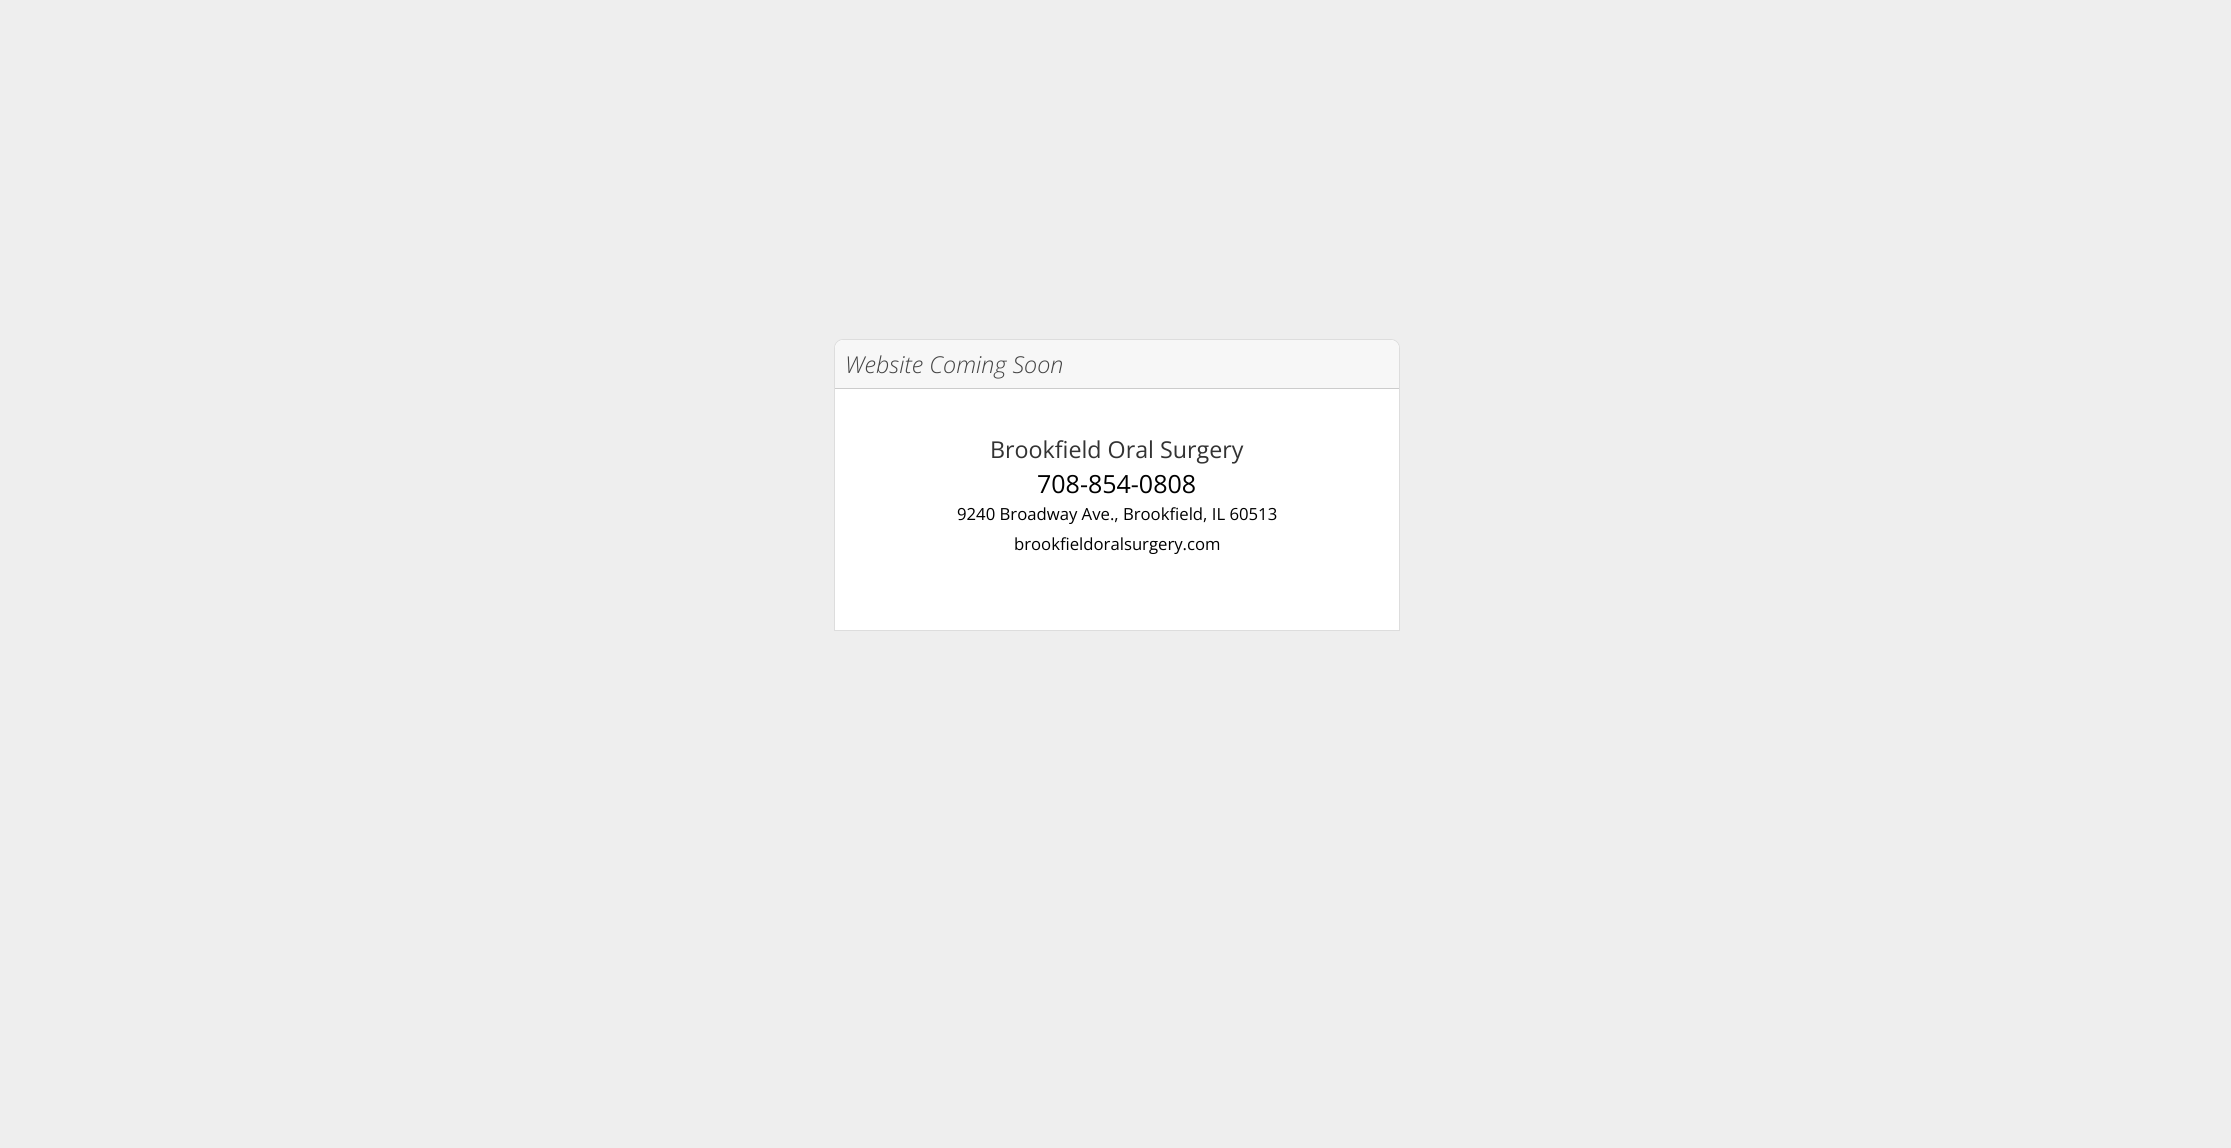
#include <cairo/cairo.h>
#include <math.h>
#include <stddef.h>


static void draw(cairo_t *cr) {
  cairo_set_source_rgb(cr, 238 / 255.0, 238 / 255.0, 238 / 255.0);
  cairo_paint(cr);
  cairo_set_source_rgb(cr, 1, 1, 1);
  cairo_new_path(cr);
  cairo_move_to(cr, 843, 339.5);
  cairo_line_to(cr, 1391, 339.5);
  cairo_curve_to(cr, 1395.5, 339.5, 1399.5, 343.5, 1399.5, 348);
  cairo_line_to(cr, 1399.5, 630.5);
  cairo_line_to(cr, 834.5, 630.5);
  cairo_line_to(cr, 834.5, 348);
  cairo_curve_to(cr, 834.5, 343.5, 838.5, 339.5, 843, 339.5);
  cairo_close_path(cr);
  cairo_fill_preserve(cr);
  cairo_set_source_rgb(cr, 221 / 255.0, 221 / 255.0, 221 / 255.0);
  cairo_set_line_width(cr, 1);
  cairo_stroke(cr);
  cairo_set_source_rgb(cr, 247 / 255.0, 247 / 255.0, 247 / 255.0);
  cairo_new_path(cr);
  cairo_move_to(cr, 844, 340);
  cairo_line_to(cr, 1390, 340);
  cairo_curve_to(cr, 1395, 340, 1399, 344, 1399, 349);
  cairo_line_to(cr, 1399, 388);
  cairo_line_to(cr, 835, 388);
  cairo_line_to(cr, 835, 349);
  cairo_curve_to(cr, 835, 344, 839, 340, 844, 340);
  cairo_close_path(cr);
  cairo_fill(cr);
  cairo_set_source_rgb(cr, 204 / 255.0, 204 / 255.0, 204 / 255.0);
  cairo_rectangle(cr, 835, 388, 564, 1);
  cairo_fill(cr);
  cairo_select_font_face(cr, "Open Sans Light", CAIRO_FONT_SLANT_ITALIC, CAIRO_FONT_WEIGHT_NORMAL);
  cairo_set_font_size(cr, 23.25);
  cairo_set_source_rgb(cr, 68 / 255.0, 68 / 255.0, 68 / 255.0);
  cairo_move_to(cr, 845, 373);
  cairo_show_text(cr, "Website Coming Soon");
  cairo_select_font_face(cr, "Open Sans", CAIRO_FONT_SLANT_NORMAL, CAIRO_FONT_WEIGHT_NORMAL);
  cairo_set_source_rgb(cr, 51 / 255.0, 51 / 255.0, 51 / 255.0);
  cairo_move_to(cr, 990, 458);
  cairo_show_text(cr, "Brookfield Oral Surgery");
  cairo_set_font_size(cr, 25);
  cairo_set_source_rgb(cr, 0, 0, 0);
  cairo_move_to(cr, 1037, 493);
  cairo_show_text(cr, "708-854-0808");
  cairo_set_font_size(cr, 16.7);
  cairo_move_to(cr, 957, 520);
  cairo_show_text(cr, "9240 Broadway Ave., Brookfield, IL 60513");
  cairo_move_to(cr, 1014, 550);
  cairo_show_text(cr, "brookfieldoralsurgery.com");
}

int main(void) {
  cairo_surface_t *surface = cairo_image_surface_create(CAIRO_FORMAT_RGB24, 2231, 1148);
  cairo_t *cr = cairo_create(surface);
  cairo_font_options_t *options = cairo_font_options_create();
  cairo_font_options_set_hint_metrics(options, CAIRO_HINT_METRICS_OFF);
  cairo_font_options_set_hint_style(options, CAIRO_HINT_STYLE_NONE);
  cairo_set_font_options(cr, options);
  cairo_set_miter_limit(cr, 4);
  draw(cr);
  cairo_surface_write_to_png(surface, "out.png");
  cairo_font_options_destroy(options);
  cairo_destroy(cr);
  cairo_surface_destroy(surface);
  return 0;
}
